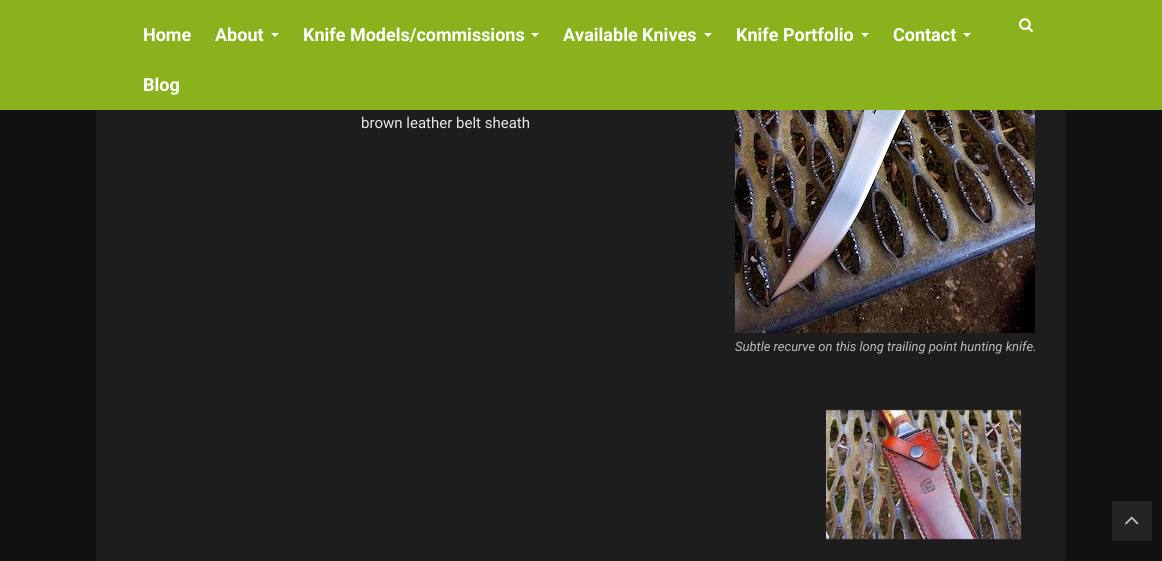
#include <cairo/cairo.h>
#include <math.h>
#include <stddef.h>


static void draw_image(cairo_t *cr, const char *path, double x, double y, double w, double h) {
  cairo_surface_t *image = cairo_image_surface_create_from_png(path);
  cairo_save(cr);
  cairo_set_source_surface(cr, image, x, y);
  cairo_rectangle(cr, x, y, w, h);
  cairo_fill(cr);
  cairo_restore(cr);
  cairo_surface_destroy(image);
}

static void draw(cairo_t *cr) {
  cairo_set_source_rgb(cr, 17 / 255.0, 17 / 255.0, 17 / 255.0);
  cairo_paint(cr);
  cairo_set_source_rgb(cr, 137 / 255.0, 178 / 255.0, 28 / 255.0);
  cairo_rectangle(cr, 0, 0, 1162, 110);
  cairo_fill(cr);
  draw_image(cr, "images/1.png", 1019, 18, 14, 15);
  cairo_set_source_rgb(cr, 1, 1, 1);
  cairo_new_path(cr);
  cairo_move_to(cr, 271, 33);
  cairo_line_to(cr, 279, 33);
  cairo_line_to(cr, 275, 37);
  cairo_close_path(cr);
  cairo_fill(cr);
  cairo_new_path(cr);
  cairo_move_to(cr, 531, 33);
  cairo_line_to(cr, 539, 33);
  cairo_line_to(cr, 535, 37);
  cairo_close_path(cr);
  cairo_fill(cr);
  cairo_new_path(cr);
  cairo_move_to(cr, 704, 33);
  cairo_line_to(cr, 712, 33);
  cairo_line_to(cr, 708, 37);
  cairo_close_path(cr);
  cairo_fill(cr);
  cairo_new_path(cr);
  cairo_move_to(cr, 861, 33);
  cairo_line_to(cr, 869, 33);
  cairo_line_to(cr, 865, 37);
  cairo_close_path(cr);
  cairo_fill(cr);
  cairo_new_path(cr);
  cairo_move_to(cr, 963, 33);
  cairo_line_to(cr, 971, 33);
  cairo_line_to(cr, 967, 37);
  cairo_close_path(cr);
  cairo_fill(cr);
  cairo_set_source_rgb(cr, 29 / 255.0, 29 / 255.0, 29 / 255.0);
  cairo_rectangle(cr, 96, 110, 970, 451);
  cairo_fill(cr);
  draw_image(cr, "images/2.png", 735, 110, 300, 223);
  draw_image(cr, "images/3.png", 826, 409, 195, 131);
  cairo_set_source_rgb(cr, 36 / 255.0, 36 / 255.0, 36 / 255.0);
  cairo_rectangle(cr, 1112, 501, 40, 40);
  cairo_fill(cr);
  draw_image(cr, "images/4.png", 1125, 516, 14, 9);
  cairo_select_font_face(cr, "Roboto", CAIRO_FONT_SLANT_NORMAL, CAIRO_FONT_WEIGHT_BOLD);
  cairo_set_font_size(cr, 18);
  cairo_set_source_rgb(cr, 1, 1, 1);
  cairo_move_to(cr, 143, 41);
  cairo_show_text(cr, "Home");
  cairo_move_to(cr, 215, 41);
  cairo_show_text(cr, "About");
  cairo_move_to(cr, 303, 41);
  cairo_show_text(cr, "Knife Models/commissions");
  cairo_move_to(cr, 563, 41);
  cairo_show_text(cr, "Available Knives");
  cairo_move_to(cr, 736, 41);
  cairo_show_text(cr, "Knife Portfolio");
  cairo_move_to(cr, 893, 41);
  cairo_show_text(cr, "Contact");
  cairo_move_to(cr, 143, 91);
  cairo_show_text(cr, "Blog");
  cairo_select_font_face(cr, "Roboto", CAIRO_FONT_SLANT_NORMAL, CAIRO_FONT_WEIGHT_NORMAL);
  cairo_set_font_size(cr, 15);
  cairo_set_source_rgb(cr, 232 / 255.0, 232 / 255.0, 232 / 255.0);
  cairo_move_to(cr, 361, 128);
  cairo_show_text(cr, "brown leather belt sheath");
  cairo_select_font_face(cr, "Roboto", CAIRO_FONT_SLANT_ITALIC, CAIRO_FONT_WEIGHT_NORMAL);
  cairo_set_font_size(cr, 13);
  cairo_set_source_rgb(cr, 187 / 255.0, 187 / 255.0, 187 / 255.0);
  cairo_move_to(cr, 735, 351);
  cairo_show_text(cr, "Subtle recurve on this long trailing point hunting knife.");
}

int main(void) {
  cairo_surface_t *surface = cairo_image_surface_create(CAIRO_FORMAT_RGB24, 1162, 561);
  cairo_t *cr = cairo_create(surface);
  cairo_font_options_t *options = cairo_font_options_create();
  cairo_font_options_set_hint_metrics(options, CAIRO_HINT_METRICS_OFF);
  cairo_font_options_set_hint_style(options, CAIRO_HINT_STYLE_NONE);
  cairo_set_font_options(cr, options);
  cairo_set_miter_limit(cr, 4);
  draw(cr);
  cairo_surface_write_to_png(surface, "out.png");
  cairo_font_options_destroy(options);
  cairo_destroy(cr);
  cairo_surface_destroy(surface);
  return 0;
}
